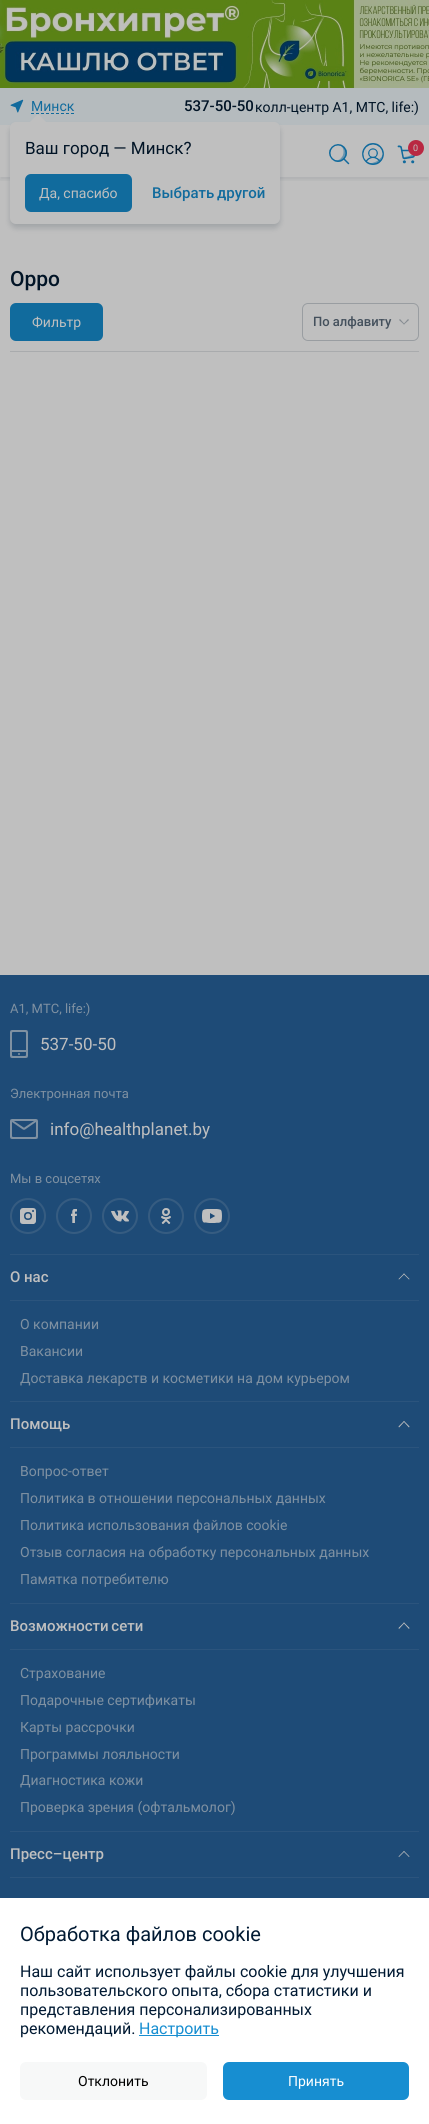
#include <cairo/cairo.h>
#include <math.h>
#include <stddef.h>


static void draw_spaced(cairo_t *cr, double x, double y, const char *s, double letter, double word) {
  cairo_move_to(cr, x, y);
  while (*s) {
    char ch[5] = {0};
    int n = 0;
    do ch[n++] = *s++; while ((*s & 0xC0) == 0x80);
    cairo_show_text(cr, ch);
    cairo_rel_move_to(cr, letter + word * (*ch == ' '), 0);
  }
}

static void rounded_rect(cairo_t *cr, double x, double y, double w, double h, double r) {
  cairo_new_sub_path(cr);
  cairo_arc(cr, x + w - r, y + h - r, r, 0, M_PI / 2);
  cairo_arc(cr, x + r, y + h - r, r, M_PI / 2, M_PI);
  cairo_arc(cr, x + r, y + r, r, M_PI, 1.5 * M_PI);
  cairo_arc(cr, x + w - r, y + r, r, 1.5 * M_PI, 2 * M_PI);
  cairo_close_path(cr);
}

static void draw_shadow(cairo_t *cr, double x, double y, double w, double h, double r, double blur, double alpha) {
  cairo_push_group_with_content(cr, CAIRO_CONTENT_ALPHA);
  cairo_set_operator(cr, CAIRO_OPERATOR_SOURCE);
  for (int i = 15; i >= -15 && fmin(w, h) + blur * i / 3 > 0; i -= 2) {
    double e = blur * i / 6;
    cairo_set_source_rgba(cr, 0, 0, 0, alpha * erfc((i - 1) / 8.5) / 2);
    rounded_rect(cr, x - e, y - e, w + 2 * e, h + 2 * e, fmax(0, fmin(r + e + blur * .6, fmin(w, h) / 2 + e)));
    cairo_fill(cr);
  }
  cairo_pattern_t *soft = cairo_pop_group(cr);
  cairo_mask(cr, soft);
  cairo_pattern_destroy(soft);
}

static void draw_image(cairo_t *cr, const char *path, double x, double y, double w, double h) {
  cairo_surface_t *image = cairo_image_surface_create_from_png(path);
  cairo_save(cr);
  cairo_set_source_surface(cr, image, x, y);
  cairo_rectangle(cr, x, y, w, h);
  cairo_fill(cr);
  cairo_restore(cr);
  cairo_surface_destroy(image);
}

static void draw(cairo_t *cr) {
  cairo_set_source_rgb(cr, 191 / 255.0, 191 / 255.0, 191 / 255.0);
  cairo_paint(cr);
  draw_image(cr, "images/1.png", 0, 0, 429, 88);
  cairo_save(cr);
  cairo_rectangle(cr, 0, 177, 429, 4);
  cairo_clip(cr);
  cairo_set_source_rgb(cr, 1 / 255.0, 20 / 255.0, 38 / 255.0);
  draw_shadow(cr, 0, 128, 429, 52, 0, 2, 0.08);
  cairo_restore(cr);
  cairo_set_source_rgb(cr, 181 / 255.0, 187 / 255.0, 190 / 255.0);
  cairo_rectangle(cr, 0, 88, 429, 37);
  cairo_fill(cr);
  draw_image(cr, "images/2.png", 10, 99, 14, 14);
  cairo_new_path(cr);
  cairo_move_to(cr, 31, 113.5);
  cairo_line_to(cr, 74, 113.5);
  cairo_set_source_rgb(cr, 17 / 255.0, 107 / 255.0, 157 / 255.0);
  cairo_set_line_width(cr, 1);
  cairo_set_dash(cr, (double[]){3, 2}, 2, 0);
  cairo_stroke(cr);
  cairo_set_source_rgb(cr, 1 / 255.0, 20 / 255.0, 38 / 255.0);
  draw_shadow(cr, 10, 126, 270, 102, 6, 3, 0.16);
  cairo_set_source_rgb(cr, 191 / 255.0, 191 / 255.0, 191 / 255.0);
  rounded_rect(cr, 10, 122, 270, 102, 6);
  cairo_fill(cr);
  cairo_new_path(cr);
  cairo_move_to(cr, 48, 124);
  cairo_line_to(cr, 28, 124);
  cairo_line_to(cr, 38, 114);
  cairo_close_path(cr);
  cairo_fill(cr);
  cairo_set_source_rgb(cr, 17 / 255.0, 107 / 255.0, 157 / 255.0);
  rounded_rect(cr, 25, 174, 107, 38, 6);
  cairo_fill(cr);
  draw_image(cr, "images/3.png", 329, 144, 21, 21);
  draw_image(cr, "images/4.png", 362, 143, 22, 22);
  draw_image(cr, "images/5.png", 397, 145, 18, 19);
  cairo_set_source_rgb(cr, 185 / 255.0, 40 / 255.0, 66 / 255.0);
  cairo_arc(cr, 416, 148, 8, 0, 2 * M_PI);
  cairo_fill(cr);
  cairo_set_source_rgb(cr, 169 / 255.0, 171 / 255.0, 173 / 255.0);
  cairo_rectangle(cr, 10, 351, 409, 1);
  cairo_fill(cr);
  cairo_set_source_rgb(cr, 17 / 255.0, 107 / 255.0, 157 / 255.0);
  rounded_rect(cr, 10, 303, 93, 38, 6);
  cairo_fill(cr);
  rounded_rect(cr, 302.5, 303.5, 116, 37, 5.5);
  cairo_set_source_rgb(cr, 153 / 255.0, 157 / 255.0, 161 / 255.0);
  cairo_set_dash(cr, NULL, 0, 0);
  cairo_stroke(cr);
  cairo_set_source_rgb(cr, 134 / 255.0, 140 / 255.0, 146 / 255.0);
  cairo_new_path(cr);
  cairo_move_to(cr, 408, 319);
  cairo_line_to(cr, 409, 320);
  cairo_line_to(cr, 404, 324.5);
  cairo_line_to(cr, 403.5, 324);
  cairo_close_path(cr);
  cairo_fill(cr);
  cairo_new_path(cr);
  cairo_move_to(cr, 400, 319);
  cairo_line_to(cr, 404.5, 324);
  cairo_line_to(cr, 404, 324.5);
  cairo_line_to(cr, 399, 320);
  cairo_close_path(cr);
  cairo_fill(cr);
  cairo_set_source_rgb(cr, 30 / 255.0, 75 / 255.0, 119 / 255.0);
  cairo_rectangle(cr, 0, 975, 429, 923);
  cairo_fill(cr);
  cairo_set_source_rgb(cr, 43 / 255.0, 84 / 255.0, 125 / 255.0);
  cairo_rectangle(cr, 10, 1254, 409, 1);
  cairo_fill(cr);
  draw_image(cr, "images/6.png", 10, 1030, 18, 28);
  draw_image(cr, "images/7.png", 10, 1119, 28, 20);
  cairo_arc(cr, 28, 1216, 17, 0, 2 * M_PI);
  cairo_set_source_rgb(cr, 54 / 255.0, 92 / 255.0, 129 / 255.0);
  cairo_set_line_width(cr, 2);
  cairo_stroke(cr);
  draw_image(cr, "images/8.png", 20, 1208, 16, 16);
  cairo_arc(cr, 74, 1216, 17, 0, 2 * M_PI);
  cairo_stroke(cr);
  draw_image(cr, "images/9.png", 71, 1209, 6, 14);
  cairo_arc(cr, 120, 1216, 17, 0, 2 * M_PI);
  cairo_stroke(cr);
  draw_image(cr, "images/10.png", 111, 1210, 18, 12);
  cairo_arc(cr, 166, 1216, 17, 0, 2 * M_PI);
  cairo_stroke(cr);
  draw_image(cr, "images/11.png", 161, 1208, 10, 16);
  cairo_arc(cr, 212, 1216, 17, 0, 2 * M_PI);
  cairo_stroke(cr);
  draw_image(cr, "images/12.png", 202, 1209, 20, 14);
  cairo_set_source_rgb(cr, 43 / 255.0, 84 / 255.0, 125 / 255.0);
  cairo_rectangle(cr, 10, 1300, 409, 1);
  cairo_fill(cr);
  cairo_set_source_rgb(cr, 191 / 255.0, 191 / 255.0, 191 / 255.0);
  cairo_new_path(cr);
  cairo_move_to(cr, 399, 1279.5);
  cairo_line_to(cr, 398.5, 1279);
  cairo_line_to(cr, 404, 1273.5);
  cairo_line_to(cr, 404.5, 1274);
  cairo_close_path(cr);
  cairo_fill(cr);
  cairo_new_path(cr);
  cairo_move_to(cr, 409, 1279.5);
  cairo_line_to(cr, 403.5, 1274);
  cairo_line_to(cr, 404, 1273.5);
  cairo_line_to(cr, 409.5, 1279);
  cairo_close_path(cr);
  cairo_fill(cr);
  cairo_set_source_rgb(cr, 43 / 255.0, 84 / 255.0, 125 / 255.0);
  cairo_rectangle(cr, 10, 1401, 409, 1);
  cairo_fill(cr);
  cairo_rectangle(cr, 10, 1447, 409, 1);
  cairo_fill(cr);
  cairo_set_source_rgb(cr, 191 / 255.0, 191 / 255.0, 191 / 255.0);
  cairo_new_path(cr);
  cairo_move_to(cr, 399, 1427.5);
  cairo_line_to(cr, 398.5, 1426.5);
  cairo_line_to(cr, 404, 1421);
  cairo_line_to(cr, 404.5, 1421.5);
  cairo_close_path(cr);
  cairo_fill(cr);
  cairo_new_path(cr);
  cairo_move_to(cr, 409, 1427.5);
  cairo_line_to(cr, 403.5, 1421.5);
  cairo_line_to(cr, 404, 1421);
  cairo_line_to(cr, 409.5, 1426.5);
  cairo_close_path(cr);
  cairo_fill(cr);
  cairo_set_source_rgb(cr, 43 / 255.0, 84 / 255.0, 125 / 255.0);
  cairo_rectangle(cr, 10, 1603, 409, 1);
  cairo_fill(cr);
  cairo_rectangle(cr, 10, 1649, 409, 1);
  cairo_fill(cr);
  cairo_set_source_rgb(cr, 191 / 255.0, 191 / 255.0, 191 / 255.0);
  cairo_new_path(cr);
  cairo_move_to(cr, 399, 1629);
  cairo_line_to(cr, 398.5, 1628);
  cairo_line_to(cr, 404, 1622.5);
  cairo_line_to(cr, 404.5, 1623);
  cairo_close_path(cr);
  cairo_fill(cr);
  cairo_new_path(cr);
  cairo_move_to(cr, 409, 1629);
  cairo_line_to(cr, 403.5, 1623);
  cairo_line_to(cr, 404, 1622.5);
  cairo_line_to(cr, 409.5, 1628);
  cairo_close_path(cr);
  cairo_fill(cr);
  cairo_set_source_rgb(cr, 43 / 255.0, 84 / 255.0, 125 / 255.0);
  cairo_rectangle(cr, 10, 1831, 409, 1);
  cairo_fill(cr);
  cairo_rectangle(cr, 10, 1877, 409, 1);
  cairo_fill(cr);
  cairo_set_source_rgb(cr, 191 / 255.0, 191 / 255.0, 191 / 255.0);
  cairo_new_path(cr);
  cairo_move_to(cr, 399, 1857);
  cairo_line_to(cr, 398.5, 1856.5);
  cairo_line_to(cr, 404, 1851);
  cairo_line_to(cr, 404.5, 1851.5);
  cairo_close_path(cr);
  cairo_fill(cr);
  cairo_new_path(cr);
  cairo_move_to(cr, 409, 1857);
  cairo_line_to(cr, 403.5, 1851.5);
  cairo_line_to(cr, 404, 1851);
  cairo_line_to(cr, 409.5, 1856.5);
  cairo_close_path(cr);
  cairo_fill(cr);
  cairo_set_source_rgb(cr, 1, 1, 1);
  cairo_rectangle(cr, 0, 1898, 429, 226);
  cairo_fill(cr);
  cairo_set_source_rgb(cr, 23 / 255.0, 142 / 255.0, 209 / 255.0);
  cairo_rectangle(cr, 139, 2035, 80, 1);
  cairo_fill(cr);
  cairo_set_source_rgb(cr, 247 / 255.0, 248 / 255.0, 248 / 255.0);
  rounded_rect(cr, 20, 2062, 187, 38, 6);
  cairo_fill(cr);
  cairo_set_source_rgb(cr, 23 / 255.0, 142 / 255.0, 209 / 255.0);
  rounded_rect(cr, 223, 2062, 186, 38, 6);
  cairo_fill(cr);
  cairo_select_font_face(cr, "Roboto", CAIRO_FONT_SLANT_NORMAL, CAIRO_FONT_WEIGHT_NORMAL);
  cairo_set_font_size(cr, 14);
  cairo_set_source_rgb(cr, 17 / 255.0, 107 / 255.0, 157 / 255.0);
  cairo_move_to(cr, 31, 111);
  cairo_show_text(cr, "Минск");
  cairo_set_font_size(cr, 17);
  cairo_set_source_rgb(cr, 1 / 255.0, 20 / 255.0, 38 / 255.0);
  cairo_move_to(cr, 25, 154);
  cairo_show_text(cr, "Ваш город — Минск?");
  cairo_set_font_size(cr, 14);
  cairo_set_source_rgb(cr, 191 / 255.0, 191 / 255.0, 191 / 255.0);
  cairo_move_to(cr, 39, 198);
  cairo_show_text(cr, "Да, спасибо");
  cairo_select_font_face(cr, "Roboto Medium", CAIRO_FONT_SLANT_NORMAL, CAIRO_FONT_WEIGHT_NORMAL);
  cairo_set_font_size(cr, 15);
  cairo_set_source_rgb(cr, 17 / 255.0, 107 / 255.0, 157 / 255.0);
  draw_spaced(cr, 152, 198, "Выбрать другой", 0, -1);
  cairo_set_source_rgb(cr, 1 / 255.0, 20 / 255.0, 38 / 255.0);
  cairo_move_to(cr, 184, 111);
  cairo_show_text(cr, "537-50-50");
  cairo_select_font_face(cr, "Roboto", CAIRO_FONT_SLANT_NORMAL, CAIRO_FONT_WEIGHT_NORMAL);
  cairo_set_font_size(cr, 14);
  cairo_move_to(cr, 255, 112);
  cairo_show_text(cr, "колл-центр A1, МТС, life:)");
  cairo_set_font_size(cr, 9);
  cairo_set_source_rgb(cr, 191 / 255.0, 191 / 255.0, 191 / 255.0);
  cairo_move_to(cr, 413, 151);
  cairo_show_text(cr, "0");
  cairo_select_font_face(cr, "Roboto Medium", CAIRO_FONT_SLANT_NORMAL, CAIRO_FONT_WEIGHT_NORMAL);
  cairo_set_font_size(cr, 21);
  cairo_set_source_rgb(cr, 1 / 255.0, 20 / 255.0, 38 / 255.0);
  cairo_move_to(cr, 10, 286);
  cairo_show_text(cr, "Орро");
  cairo_select_font_face(cr, "Roboto", CAIRO_FONT_SLANT_NORMAL, CAIRO_FONT_WEIGHT_NORMAL);
  cairo_set_font_size(cr, 14);
  cairo_set_source_rgb(cr, 191 / 255.0, 191 / 255.0, 191 / 255.0);
  cairo_move_to(cr, 32, 327);
  cairo_show_text(cr, "Фильтр");
  cairo_select_font_face(cr, "Roboto Medium", CAIRO_FONT_SLANT_NORMAL, CAIRO_FONT_WEIGHT_NORMAL);
  cairo_set_font_size(cr, 13);
  cairo_set_source_rgb(cr, 68 / 255.0, 80 / 255.0, 92 / 255.0);
  cairo_move_to(cr, 313, 326);
  cairo_show_text(cr, "По алфавиту");
  cairo_select_font_face(cr, "Roboto", CAIRO_FONT_SLANT_NORMAL, CAIRO_FONT_WEIGHT_NORMAL);
  cairo_set_source_rgb(cr, 127 / 255.0, 145 / 255.0, 162 / 255.0);
  cairo_move_to(cr, 10, 1013);
  cairo_show_text(cr, "A1, МТС, life:)");
  cairo_set_font_size(cr, 17);
  cairo_set_source_rgb(cr, 191 / 255.0, 191 / 255.0, 191 / 255.0);
  cairo_move_to(cr, 40, 1050);
  cairo_show_text(cr, "537-50-50");
  cairo_set_font_size(cr, 13);
  cairo_set_source_rgb(cr, 127 / 255.0, 145 / 255.0, 162 / 255.0);
  cairo_move_to(cr, 10, 1098);
  cairo_show_text(cr, "Электронная почта");
  cairo_set_font_size(cr, 17);
  cairo_set_source_rgb(cr, 191 / 255.0, 191 / 255.0, 191 / 255.0);
  cairo_move_to(cr, 50, 1135);
  cairo_show_text(cr, "info@healthplanet.by");
  cairo_set_font_size(cr, 13);
  cairo_set_source_rgb(cr, 127 / 255.0, 145 / 255.0, 162 / 255.0);
  cairo_move_to(cr, 10, 1183);
  cairo_show_text(cr, "Мы в соцсетях");
  cairo_select_font_face(cr, "Roboto Medium", CAIRO_FONT_SLANT_NORMAL, CAIRO_FONT_WEIGHT_NORMAL);
  cairo_set_font_size(cr, 15);
  cairo_set_source_rgb(cr, 191 / 255.0, 191 / 255.0, 191 / 255.0);
  cairo_move_to(cr, 10, 1282);
  cairo_show_text(cr, "О нас");
  cairo_select_font_face(cr, "Roboto", CAIRO_FONT_SLANT_NORMAL, CAIRO_FONT_WEIGHT_NORMAL);
  cairo_set_font_size(cr, 14);
  cairo_set_source_rgb(cr, 127 / 255.0, 145 / 255.0, 162 / 255.0);
  cairo_move_to(cr, 20, 1329);
  cairo_show_text(cr, "О компании");
  cairo_move_to(cr, 20, 1356);
  cairo_show_text(cr, "Вакансии");
  cairo_move_to(cr, 20, 1383);
  cairo_show_text(cr, "Доставка лекарств и косметики на дом курьером");
  cairo_select_font_face(cr, "Roboto Medium", CAIRO_FONT_SLANT_NORMAL, CAIRO_FONT_WEIGHT_NORMAL);
  cairo_set_font_size(cr, 15);
  cairo_set_source_rgb(cr, 191 / 255.0, 191 / 255.0, 191 / 255.0);
  cairo_move_to(cr, 10, 1429);
  cairo_show_text(cr, "Помощь");
  cairo_select_font_face(cr, "Roboto", CAIRO_FONT_SLANT_NORMAL, CAIRO_FONT_WEIGHT_NORMAL);
  cairo_set_font_size(cr, 14);
  cairo_set_source_rgb(cr, 127 / 255.0, 145 / 255.0, 162 / 255.0);
  cairo_move_to(cr, 20, 1476);
  cairo_show_text(cr, "Вопрос-ответ");
  cairo_move_to(cr, 20, 1503);
  cairo_show_text(cr, "Политика в отношении персональных данных");
  cairo_move_to(cr, 20, 1530);
  cairo_show_text(cr, "Политика использования файлов cookie");
  cairo_move_to(cr, 20, 1557);
  cairo_show_text(cr, "Отзыв согласия на обработку персональных данных");
  cairo_move_to(cr, 20, 1584);
  cairo_show_text(cr, "Памятка потребителю");
  cairo_select_font_face(cr, "Roboto Medium", CAIRO_FONT_SLANT_NORMAL, CAIRO_FONT_WEIGHT_NORMAL);
  cairo_set_font_size(cr, 15);
  cairo_set_source_rgb(cr, 191 / 255.0, 191 / 255.0, 191 / 255.0);
  draw_spaced(cr, 10, 1631, "Возможности сети", 0, -1);
  cairo_select_font_face(cr, "Roboto", CAIRO_FONT_SLANT_NORMAL, CAIRO_FONT_WEIGHT_NORMAL);
  cairo_set_font_size(cr, 14);
  cairo_set_source_rgb(cr, 127 / 255.0, 145 / 255.0, 162 / 255.0);
  cairo_move_to(cr, 20, 1678);
  cairo_show_text(cr, "Страхование");
  cairo_move_to(cr, 20, 1705);
  cairo_show_text(cr, "Подарочные сертификаты");
  cairo_move_to(cr, 20, 1732);
  cairo_show_text(cr, "Карты рассрочки");
  cairo_move_to(cr, 20, 1759);
  cairo_show_text(cr, "Программы лояльности");
  cairo_move_to(cr, 20, 1785);
  cairo_show_text(cr, "Диагностика кожи");
  cairo_move_to(cr, 20, 1812);
  cairo_show_text(cr, "Проверка зрения (офтальмолог)");
  cairo_select_font_face(cr, "Roboto Medium", CAIRO_FONT_SLANT_NORMAL, CAIRO_FONT_WEIGHT_NORMAL);
  cairo_set_font_size(cr, 15);
  cairo_set_source_rgb(cr, 191 / 255.0, 191 / 255.0, 191 / 255.0);
  cairo_move_to(cr, 10, 1859);
  cairo_show_text(cr, "Пресс–центр");
  cairo_select_font_face(cr, "Roboto", CAIRO_FONT_SLANT_NORMAL, CAIRO_FONT_WEIGHT_NORMAL);
  cairo_set_font_size(cr, 20);
  cairo_set_source_rgb(cr, 1 / 255.0, 26 / 255.0, 51 / 255.0);
  cairo_move_to(cr, 20, 1941);
  cairo_show_text(cr, "Обработка файлов cookie");
  cairo_set_font_size(cr, 16);
  cairo_move_to(cr, 20, 1977);
  cairo_show_text(cr, "Наш сайт использует файлы cookie для улучшения");
  cairo_move_to(cr, 20, 1996);
  cairo_show_text(cr, "пользовательского опыта, сбора статистики и");
  cairo_move_to(cr, 20, 2015);
  cairo_show_text(cr, "представления персонализированных");
  cairo_move_to(cr, 20, 2034);
  cairo_show_text(cr, "рекомендаций.");
  cairo_set_source_rgb(cr, 23 / 255.0, 142 / 255.0, 209 / 255.0);
  cairo_move_to(cr, 139, 2034);
  cairo_show_text(cr, "Настроить");
  cairo_set_font_size(cr, 14);
  cairo_set_source_rgb(cr, 0, 0, 0);
  cairo_move_to(cr, 78, 2086);
  cairo_show_text(cr, "Отклонить");
  cairo_set_source_rgb(cr, 1, 1, 1);
  cairo_move_to(cr, 288, 2086);
  cairo_show_text(cr, "Принять");
}

int main(void) {
  cairo_surface_t *surface = cairo_image_surface_create(CAIRO_FORMAT_RGB24, 429, 2124);
  cairo_t *cr = cairo_create(surface);
  cairo_font_options_t *options = cairo_font_options_create();
  cairo_font_options_set_hint_metrics(options, CAIRO_HINT_METRICS_OFF);
  cairo_font_options_set_hint_style(options, CAIRO_HINT_STYLE_NONE);
  cairo_set_font_options(cr, options);
  cairo_set_miter_limit(cr, 4);
  draw(cr);
  cairo_surface_write_to_png(surface, "out.png");
  cairo_font_options_destroy(options);
  cairo_destroy(cr);
  cairo_surface_destroy(surface);
  return 0;
}
